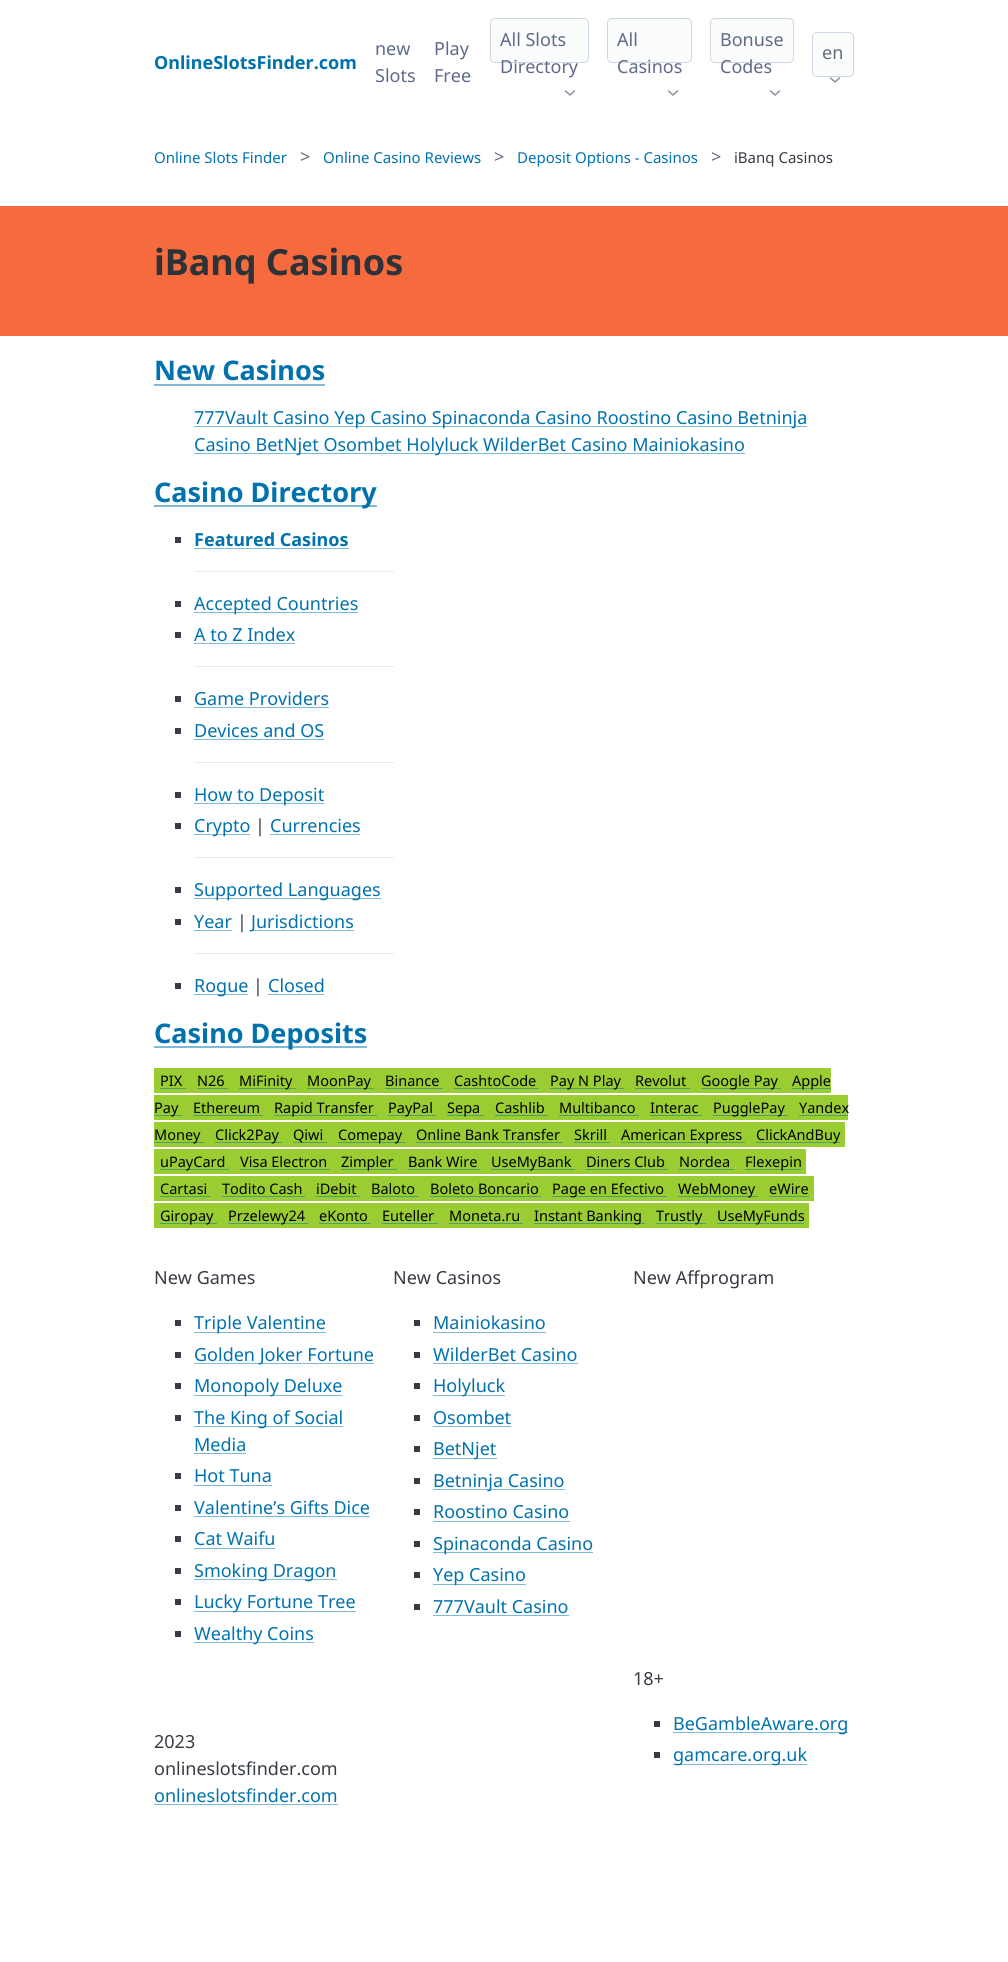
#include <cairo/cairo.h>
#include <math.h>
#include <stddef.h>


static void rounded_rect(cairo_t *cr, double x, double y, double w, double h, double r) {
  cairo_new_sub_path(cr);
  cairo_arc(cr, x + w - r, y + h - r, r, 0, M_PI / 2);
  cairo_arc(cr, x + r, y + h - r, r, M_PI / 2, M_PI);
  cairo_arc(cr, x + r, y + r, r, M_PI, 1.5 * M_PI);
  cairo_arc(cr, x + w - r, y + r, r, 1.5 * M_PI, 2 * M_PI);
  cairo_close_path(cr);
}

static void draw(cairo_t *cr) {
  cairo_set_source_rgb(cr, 1, 1, 1);
  cairo_paint(cr);
  cairo_set_source_rgb(cr, 251 / 255.0, 252 / 255.0, 252 / 255.0);
  rounded_rect(cr, 490.5, 18.5, 98, 44, 4.5);
  cairo_fill_preserve(cr);
  cairo_set_source_rgb(cr, 207 / 255.0, 213 / 255.0, 226 / 255.0);
  cairo_set_line_width(cr, 1);
  cairo_stroke(cr);
  cairo_new_path(cr);
  cairo_move_to(cr, 565.5, 91);
  cairo_line_to(cr, 570, 95);
  cairo_line_to(cr, 574.5, 91);
  cairo_set_source_rgb(cr, 136 / 255.0, 145 / 255.0, 164 / 255.0);
  cairo_set_line_width(cr, 1.5);
  cairo_set_line_cap(cr, CAIRO_LINE_CAP_ROUND);
  cairo_set_line_join(cr, CAIRO_LINE_JOIN_ROUND);
  cairo_stroke(cr);
  cairo_set_source_rgb(cr, 251 / 255.0, 252 / 255.0, 252 / 255.0);
  rounded_rect(cr, 607.5, 18.5, 84, 44, 4.5);
  cairo_fill_preserve(cr);
  cairo_set_source_rgb(cr, 207 / 255.0, 213 / 255.0, 226 / 255.0);
  cairo_set_line_width(cr, 1);
  cairo_set_line_cap(cr, CAIRO_LINE_CAP_BUTT);
  cairo_set_line_join(cr, CAIRO_LINE_JOIN_MITER);
  cairo_stroke(cr);
  cairo_new_path(cr);
  cairo_move_to(cr, 668.5, 91);
  cairo_line_to(cr, 673, 95);
  cairo_line_to(cr, 677.5, 91);
  cairo_set_source_rgb(cr, 136 / 255.0, 145 / 255.0, 164 / 255.0);
  cairo_set_line_width(cr, 1.5);
  cairo_set_line_cap(cr, CAIRO_LINE_CAP_ROUND);
  cairo_set_line_join(cr, CAIRO_LINE_JOIN_ROUND);
  cairo_stroke(cr);
  cairo_set_source_rgb(cr, 251 / 255.0, 252 / 255.0, 252 / 255.0);
  rounded_rect(cr, 710.5, 18.5, 83, 44, 4.5);
  cairo_fill_preserve(cr);
  cairo_set_source_rgb(cr, 207 / 255.0, 213 / 255.0, 226 / 255.0);
  cairo_set_line_width(cr, 1);
  cairo_set_line_cap(cr, CAIRO_LINE_CAP_BUTT);
  cairo_set_line_join(cr, CAIRO_LINE_JOIN_MITER);
  cairo_stroke(cr);
  cairo_new_path(cr);
  cairo_move_to(cr, 770.5, 91);
  cairo_line_to(cr, 775, 95);
  cairo_line_to(cr, 779.5, 91);
  cairo_set_source_rgb(cr, 136 / 255.0, 145 / 255.0, 164 / 255.0);
  cairo_set_line_width(cr, 1.5);
  cairo_set_line_cap(cr, CAIRO_LINE_CAP_ROUND);
  cairo_set_line_join(cr, CAIRO_LINE_JOIN_ROUND);
  cairo_stroke(cr);
  cairo_set_source_rgb(cr, 251 / 255.0, 252 / 255.0, 252 / 255.0);
  rounded_rect(cr, 812.5, 32.5, 41, 44, 4.5);
  cairo_fill_preserve(cr);
  cairo_set_source_rgb(cr, 207 / 255.0, 213 / 255.0, 226 / 255.0);
  cairo_set_line_width(cr, 1);
  cairo_set_line_cap(cr, CAIRO_LINE_CAP_BUTT);
  cairo_set_line_join(cr, CAIRO_LINE_JOIN_MITER);
  cairo_stroke(cr);
  cairo_new_path(cr);
  cairo_move_to(cr, 830.5, 78);
  cairo_line_to(cr, 835, 82);
  cairo_line_to(cr, 839.5, 78);
  cairo_set_source_rgb(cr, 136 / 255.0, 145 / 255.0, 164 / 255.0);
  cairo_set_line_width(cr, 1.5);
  cairo_set_line_cap(cr, CAIRO_LINE_CAP_ROUND);
  cairo_set_line_join(cr, CAIRO_LINE_JOIN_ROUND);
  cairo_stroke(cr);
  cairo_set_source_rgb(cr, 245 / 255.0, 107 / 255.0, 61 / 255.0);
  cairo_rectangle(cr, 0, 206, 1008, 130);
  cairo_fill(cr);
  cairo_set_source_rgb(cr, 128 / 255.0, 185 / 255.0, 214 / 255.0);
  cairo_rectangle(cr, 154, 384, 171, 2);
  cairo_fill(cr);
  cairo_rectangle(cr, 194, 426, 613, 1);
  cairo_fill(cr);
  cairo_rectangle(cr, 194, 453, 551, 1);
  cairo_fill(cr);
  cairo_rectangle(cr, 154, 505, 223, 2);
  cairo_fill(cr);
  cairo_set_source_rgb(cr, 55 / 255.0, 60 / 255.0, 68 / 255.0);
  cairo_rectangle(cr, 175, 537, 6, 6);
  cairo_fill(cr);
  cairo_set_source_rgb(cr, 128 / 255.0, 185 / 255.0, 214 / 255.0);
  cairo_rectangle(cr, 194, 548, 155, 1);
  cairo_fill(cr);
  cairo_set_source_rgb(cr, 231 / 255.0, 234 / 255.0, 240 / 255.0);
  cairo_rectangle(cr, 194, 571, 200, 1);
  cairo_fill(cr);
  cairo_set_source_rgb(cr, 55 / 255.0, 60 / 255.0, 68 / 255.0);
  cairo_rectangle(cr, 175, 601, 6, 6);
  cairo_fill(cr);
  cairo_set_source_rgb(cr, 128 / 255.0, 185 / 255.0, 214 / 255.0);
  cairo_rectangle(cr, 194, 612, 164, 1);
  cairo_fill(cr);
  cairo_set_source_rgb(cr, 55 / 255.0, 60 / 255.0, 68 / 255.0);
  cairo_rectangle(cr, 175, 632, 6, 6);
  cairo_fill(cr);
  cairo_set_source_rgb(cr, 128 / 255.0, 185 / 255.0, 214 / 255.0);
  cairo_rectangle(cr, 194, 643, 101, 1);
  cairo_fill(cr);
  cairo_set_source_rgb(cr, 231 / 255.0, 234 / 255.0, 240 / 255.0);
  cairo_rectangle(cr, 194, 666, 200, 1);
  cairo_fill(cr);
  cairo_set_source_rgb(cr, 55 / 255.0, 60 / 255.0, 68 / 255.0);
  cairo_rectangle(cr, 175, 696, 6, 6);
  cairo_fill(cr);
  cairo_set_source_rgb(cr, 128 / 255.0, 185 / 255.0, 214 / 255.0);
  cairo_rectangle(cr, 194, 707, 135, 1);
  cairo_fill(cr);
  cairo_set_source_rgb(cr, 55 / 255.0, 60 / 255.0, 68 / 255.0);
  cairo_rectangle(cr, 175, 728, 6, 6);
  cairo_fill(cr);
  cairo_set_source_rgb(cr, 128 / 255.0, 185 / 255.0, 214 / 255.0);
  cairo_rectangle(cr, 194, 739, 130, 1);
  cairo_fill(cr);
  cairo_set_source_rgb(cr, 231 / 255.0, 234 / 255.0, 240 / 255.0);
  cairo_rectangle(cr, 194, 762, 200, 1);
  cairo_fill(cr);
  cairo_set_source_rgb(cr, 55 / 255.0, 60 / 255.0, 68 / 255.0);
  cairo_rectangle(cr, 175, 792, 6, 6);
  cairo_fill(cr);
  cairo_set_source_rgb(cr, 128 / 255.0, 185 / 255.0, 214 / 255.0);
  cairo_rectangle(cr, 194, 803, 130, 1);
  cairo_fill(cr);
  cairo_set_source_rgb(cr, 55 / 255.0, 60 / 255.0, 68 / 255.0);
  cairo_rectangle(cr, 175, 823, 6, 6);
  cairo_fill(cr);
  cairo_set_source_rgb(cr, 128 / 255.0, 185 / 255.0, 214 / 255.0);
  cairo_rectangle(cr, 194, 834, 56, 1);
  cairo_fill(cr);
  cairo_rectangle(cr, 270, 834, 90, 1);
  cairo_fill(cr);
  cairo_set_source_rgb(cr, 231 / 255.0, 234 / 255.0, 240 / 255.0);
  cairo_rectangle(cr, 194, 857, 200, 1);
  cairo_fill(cr);
  cairo_set_source_rgb(cr, 55 / 255.0, 60 / 255.0, 68 / 255.0);
  cairo_rectangle(cr, 175, 887, 6, 6);
  cairo_fill(cr);
  cairo_set_source_rgb(cr, 128 / 255.0, 185 / 255.0, 214 / 255.0);
  cairo_rectangle(cr, 194, 898, 187, 1);
  cairo_fill(cr);
  cairo_set_source_rgb(cr, 55 / 255.0, 60 / 255.0, 68 / 255.0);
  cairo_rectangle(cr, 175, 919, 6, 6);
  cairo_fill(cr);
  cairo_set_source_rgb(cr, 128 / 255.0, 185 / 255.0, 214 / 255.0);
  cairo_rectangle(cr, 194, 930, 38, 1);
  cairo_fill(cr);
  cairo_rectangle(cr, 251, 930, 103, 1);
  cairo_fill(cr);
  cairo_set_source_rgb(cr, 231 / 255.0, 234 / 255.0, 240 / 255.0);
  cairo_rectangle(cr, 194, 953, 200, 1);
  cairo_fill(cr);
  cairo_set_source_rgb(cr, 55 / 255.0, 60 / 255.0, 68 / 255.0);
  cairo_rectangle(cr, 175, 983, 6, 6);
  cairo_fill(cr);
  cairo_set_source_rgb(cr, 128 / 255.0, 185 / 255.0, 214 / 255.0);
  cairo_rectangle(cr, 194, 994, 54, 1);
  cairo_fill(cr);
  cairo_rectangle(cr, 268, 994, 56, 1);
  cairo_fill(cr);
  cairo_rectangle(cr, 154, 1046, 213, 2);
  cairo_fill(cr);
  cairo_set_source_rgb(cr, 154 / 255.0, 205 / 255.0, 50 / 255.0);
  cairo_rectangle(cr, 154, 1068, 677, 25);
  cairo_fill(cr);
  cairo_set_source_rgb(cr, 78 / 255.0, 160 / 255.0, 112 / 255.0);
  cairo_rectangle(cr, 160, 1088, 26, 1);
  cairo_fill(cr);
  cairo_rectangle(cr, 197, 1088, 31, 1);
  cairo_fill(cr);
  cairo_rectangle(cr, 239, 1088, 57, 1);
  cairo_fill(cr);
  cairo_rectangle(cr, 307, 1088, 67, 1);
  cairo_fill(cr);
  cairo_rectangle(cr, 385, 1088, 58, 1);
  cairo_fill(cr);
  cairo_rectangle(cr, 454, 1088, 85, 1);
  cairo_fill(cr);
  cairo_rectangle(cr, 550, 1088, 74, 1);
  cairo_fill(cr);
  cairo_rectangle(cr, 635, 1088, 55, 1);
  cairo_fill(cr);
  cairo_rectangle(cr, 701, 1088, 80, 1);
  cairo_fill(cr);
  cairo_rectangle(cr, 792, 1088, 39, 1);
  cairo_fill(cr);
  cairo_set_source_rgb(cr, 154 / 255.0, 205 / 255.0, 50 / 255.0);
  cairo_rectangle(cr, 154, 1095, 694, 25);
  cairo_fill(cr);
  cairo_set_source_rgb(cr, 78 / 255.0, 160 / 255.0, 112 / 255.0);
  cairo_rectangle(cr, 154, 1115, 28, 1);
  cairo_fill(cr);
  cairo_rectangle(cr, 193, 1115, 70, 1);
  cairo_fill(cr);
  cairo_rectangle(cr, 274, 1115, 103, 1);
  cairo_fill(cr);
  cairo_rectangle(cr, 388, 1115, 48, 1);
  cairo_fill(cr);
  cairo_rectangle(cr, 447, 1115, 37, 1);
  cairo_fill(cr);
  cairo_rectangle(cr, 495, 1115, 53, 1);
  cairo_fill(cr);
  cairo_rectangle(cr, 559, 1115, 80, 1);
  cairo_fill(cr);
  cairo_rectangle(cr, 650, 1115, 52, 1);
  cairo_fill(cr);
  cairo_rectangle(cr, 713, 1115, 75, 1);
  cairo_fill(cr);
  cairo_rectangle(cr, 799, 1115, 49, 1);
  cairo_fill(cr);
  cairo_set_source_rgb(cr, 154 / 255.0, 205 / 255.0, 50 / 255.0);
  cairo_rectangle(cr, 154, 1122, 691, 25);
  cairo_fill(cr);
  cairo_set_source_rgb(cr, 78 / 255.0, 160 / 255.0, 112 / 255.0);
  cairo_rectangle(cr, 154, 1142, 50, 1);
  cairo_fill(cr);
  cairo_rectangle(cr, 215, 1142, 67, 1);
  cairo_fill(cr);
  cairo_rectangle(cr, 293, 1142, 34, 1);
  cairo_fill(cr);
  cairo_rectangle(cr, 338, 1142, 67, 1);
  cairo_fill(cr);
  cairo_rectangle(cr, 416, 1142, 147, 1);
  cairo_fill(cr);
  cairo_rectangle(cr, 574, 1142, 36, 1);
  cairo_fill(cr);
  cairo_rectangle(cr, 621, 1142, 124, 1);
  cairo_fill(cr);
  cairo_rectangle(cr, 756, 1142, 84, 1);
  cairo_fill(cr);
  cairo_set_source_rgb(cr, 154 / 255.0, 205 / 255.0, 50 / 255.0);
  cairo_rectangle(cr, 154, 1149, 652, 25);
  cairo_fill(cr);
  cairo_set_source_rgb(cr, 78 / 255.0, 160 / 255.0, 112 / 255.0);
  cairo_rectangle(cr, 160, 1169, 69, 1);
  cairo_fill(cr);
  cairo_rectangle(cr, 240, 1169, 90, 1);
  cairo_fill(cr);
  cairo_rectangle(cr, 341, 1169, 56, 1);
  cairo_fill(cr);
  cairo_rectangle(cr, 408, 1169, 72, 1);
  cairo_fill(cr);
  cairo_rectangle(cr, 491, 1169, 84, 1);
  cairo_fill(cr);
  cairo_rectangle(cr, 586, 1169, 82, 1);
  cairo_fill(cr);
  cairo_rectangle(cr, 679, 1169, 55, 1);
  cairo_fill(cr);
  cairo_rectangle(cr, 745, 1169, 56, 1);
  cairo_fill(cr);
  cairo_set_source_rgb(cr, 154 / 255.0, 205 / 255.0, 50 / 255.0);
  cairo_rectangle(cr, 154, 1176, 660, 25);
  cairo_fill(cr);
  cairo_set_source_rgb(cr, 78 / 255.0, 160 / 255.0, 112 / 255.0);
  cairo_rectangle(cr, 160, 1196, 51, 1);
  cairo_fill(cr);
  cairo_rectangle(cr, 222, 1196, 83, 1);
  cairo_fill(cr);
  cairo_rectangle(cr, 316, 1196, 44, 1);
  cairo_fill(cr);
  cairo_rectangle(cr, 371, 1196, 48, 1);
  cairo_fill(cr);
  cairo_rectangle(cr, 430, 1196, 111, 1);
  cairo_fill(cr);
  cairo_rectangle(cr, 552, 1196, 115, 1);
  cairo_fill(cr);
  cairo_rectangle(cr, 678, 1196, 80, 1);
  cairo_fill(cr);
  cairo_rectangle(cr, 769, 1196, 40, 1);
  cairo_fill(cr);
  cairo_set_source_rgb(cr, 154 / 255.0, 205 / 255.0, 50 / 255.0);
  cairo_rectangle(cr, 154, 1203, 655, 25);
  cairo_fill(cr);
  cairo_set_source_rgb(cr, 78 / 255.0, 160 / 255.0, 112 / 255.0);
  cairo_rectangle(cr, 160, 1223, 57, 1);
  cairo_fill(cr);
  cairo_rectangle(cr, 228, 1223, 80, 1);
  cairo_fill(cr);
  cairo_rectangle(cr, 319, 1223, 52, 1);
  cairo_fill(cr);
  cairo_rectangle(cr, 382, 1223, 56, 1);
  cairo_fill(cr);
  cairo_rectangle(cr, 449, 1223, 74, 1);
  cairo_fill(cr);
  cairo_rectangle(cr, 534, 1223, 111, 1);
  cairo_fill(cr);
  cairo_rectangle(cr, 656, 1223, 50, 1);
  cairo_fill(cr);
  cairo_rectangle(cr, 717, 1223, 87, 1);
  cairo_fill(cr);
  cairo_set_source_rgb(cr, 55 / 255.0, 60 / 255.0, 68 / 255.0);
  cairo_rectangle(cr, 175, 1320, 6, 6);
  cairo_fill(cr);
  cairo_set_source_rgb(cr, 128 / 255.0, 185 / 255.0, 214 / 255.0);
  cairo_rectangle(cr, 194, 1332, 132, 1);
  cairo_fill(cr);
  cairo_set_source_rgb(cr, 55 / 255.0, 60 / 255.0, 68 / 255.0);
  cairo_rectangle(cr, 175, 1352, 6, 6);
  cairo_fill(cr);
  cairo_set_source_rgb(cr, 128 / 255.0, 185 / 255.0, 214 / 255.0);
  cairo_rectangle(cr, 194, 1363, 180, 1);
  cairo_fill(cr);
  cairo_set_source_rgb(cr, 55 / 255.0, 60 / 255.0, 68 / 255.0);
  cairo_rectangle(cr, 175, 1383, 6, 6);
  cairo_fill(cr);
  cairo_set_source_rgb(cr, 128 / 255.0, 185 / 255.0, 214 / 255.0);
  cairo_rectangle(cr, 194, 1395, 148, 1);
  cairo_fill(cr);
  cairo_set_source_rgb(cr, 55 / 255.0, 60 / 255.0, 68 / 255.0);
  cairo_rectangle(cr, 175, 1415, 6, 6);
  cairo_fill(cr);
  cairo_set_source_rgb(cr, 128 / 255.0, 185 / 255.0, 214 / 255.0);
  cairo_rectangle(cr, 194, 1426, 149, 1);
  cairo_fill(cr);
  cairo_rectangle(cr, 194, 1453, 52, 1);
  cairo_fill(cr);
  cairo_set_source_rgb(cr, 55 / 255.0, 60 / 255.0, 68 / 255.0);
  cairo_rectangle(cr, 175, 1473, 6, 6);
  cairo_fill(cr);
  cairo_set_source_rgb(cr, 128 / 255.0, 185 / 255.0, 214 / 255.0);
  cairo_rectangle(cr, 194, 1485, 78, 1);
  cairo_fill(cr);
  cairo_set_source_rgb(cr, 55 / 255.0, 60 / 255.0, 68 / 255.0);
  cairo_rectangle(cr, 175, 1505, 6, 6);
  cairo_fill(cr);
  cairo_set_source_rgb(cr, 128 / 255.0, 185 / 255.0, 214 / 255.0);
  cairo_rectangle(cr, 194, 1516, 176, 1);
  cairo_fill(cr);
  cairo_set_source_rgb(cr, 55 / 255.0, 60 / 255.0, 68 / 255.0);
  cairo_rectangle(cr, 175, 1536, 6, 6);
  cairo_fill(cr);
  cairo_set_source_rgb(cr, 128 / 255.0, 185 / 255.0, 214 / 255.0);
  cairo_rectangle(cr, 194, 1548, 81, 1);
  cairo_fill(cr);
  cairo_set_source_rgb(cr, 55 / 255.0, 60 / 255.0, 68 / 255.0);
  cairo_rectangle(cr, 175, 1568, 6, 6);
  cairo_fill(cr);
  cairo_set_source_rgb(cr, 128 / 255.0, 185 / 255.0, 214 / 255.0);
  cairo_rectangle(cr, 194, 1579, 143, 1);
  cairo_fill(cr);
  cairo_set_source_rgb(cr, 55 / 255.0, 60 / 255.0, 68 / 255.0);
  cairo_rectangle(cr, 175, 1599, 6, 6);
  cairo_fill(cr);
  cairo_set_source_rgb(cr, 128 / 255.0, 185 / 255.0, 214 / 255.0);
  cairo_rectangle(cr, 194, 1611, 162, 1);
  cairo_fill(cr);
  cairo_set_source_rgb(cr, 55 / 255.0, 60 / 255.0, 68 / 255.0);
  cairo_rectangle(cr, 175, 1631, 6, 6);
  cairo_fill(cr);
  cairo_set_source_rgb(cr, 128 / 255.0, 185 / 255.0, 214 / 255.0);
  cairo_rectangle(cr, 194, 1642, 120, 1);
  cairo_fill(cr);
  cairo_set_source_rgb(cr, 55 / 255.0, 60 / 255.0, 68 / 255.0);
  cairo_rectangle(cr, 414, 1320, 6, 6);
  cairo_fill(cr);
  cairo_set_source_rgb(cr, 128 / 255.0, 185 / 255.0, 214 / 255.0);
  cairo_rectangle(cr, 433, 1332, 113, 1);
  cairo_fill(cr);
  cairo_set_source_rgb(cr, 55 / 255.0, 60 / 255.0, 68 / 255.0);
  cairo_rectangle(cr, 414, 1352, 6, 6);
  cairo_fill(cr);
  cairo_set_source_rgb(cr, 128 / 255.0, 185 / 255.0, 214 / 255.0);
  cairo_rectangle(cr, 433, 1363, 145, 1);
  cairo_fill(cr);
  cairo_set_source_rgb(cr, 55 / 255.0, 60 / 255.0, 68 / 255.0);
  cairo_rectangle(cr, 414, 1383, 6, 6);
  cairo_fill(cr);
  cairo_set_source_rgb(cr, 128 / 255.0, 185 / 255.0, 214 / 255.0);
  cairo_rectangle(cr, 433, 1395, 72, 1);
  cairo_fill(cr);
  cairo_set_source_rgb(cr, 55 / 255.0, 60 / 255.0, 68 / 255.0);
  cairo_rectangle(cr, 414, 1415, 6, 6);
  cairo_fill(cr);
  cairo_set_source_rgb(cr, 128 / 255.0, 185 / 255.0, 214 / 255.0);
  cairo_rectangle(cr, 433, 1426, 78, 1);
  cairo_fill(cr);
  cairo_set_source_rgb(cr, 55 / 255.0, 60 / 255.0, 68 / 255.0);
  cairo_rectangle(cr, 414, 1446, 6, 6);
  cairo_fill(cr);
  cairo_set_source_rgb(cr, 128 / 255.0, 185 / 255.0, 214 / 255.0);
  cairo_rectangle(cr, 433, 1458, 64, 1);
  cairo_fill(cr);
  cairo_set_source_rgb(cr, 55 / 255.0, 60 / 255.0, 68 / 255.0);
  cairo_rectangle(cr, 414, 1478, 6, 6);
  cairo_fill(cr);
  cairo_set_source_rgb(cr, 128 / 255.0, 185 / 255.0, 214 / 255.0);
  cairo_rectangle(cr, 433, 1489, 132, 1);
  cairo_fill(cr);
  cairo_set_source_rgb(cr, 55 / 255.0, 60 / 255.0, 68 / 255.0);
  cairo_rectangle(cr, 414, 1509, 6, 6);
  cairo_fill(cr);
  cairo_set_source_rgb(cr, 128 / 255.0, 185 / 255.0, 214 / 255.0);
  cairo_rectangle(cr, 433, 1521, 137, 1);
  cairo_fill(cr);
  cairo_set_source_rgb(cr, 55 / 255.0, 60 / 255.0, 68 / 255.0);
  cairo_rectangle(cr, 414, 1541, 6, 6);
  cairo_fill(cr);
  cairo_set_source_rgb(cr, 128 / 255.0, 185 / 255.0, 214 / 255.0);
  cairo_rectangle(cr, 433, 1552, 160, 1);
  cairo_fill(cr);
  cairo_set_source_rgb(cr, 55 / 255.0, 60 / 255.0, 68 / 255.0);
  cairo_rectangle(cr, 414, 1572, 6, 6);
  cairo_fill(cr);
  cairo_set_source_rgb(cr, 128 / 255.0, 185 / 255.0, 214 / 255.0);
  cairo_rectangle(cr, 433, 1584, 93, 1);
  cairo_fill(cr);
  cairo_set_source_rgb(cr, 55 / 255.0, 60 / 255.0, 68 / 255.0);
  cairo_rectangle(cr, 414, 1604, 6, 6);
  cairo_fill(cr);
  cairo_set_source_rgb(cr, 128 / 255.0, 185 / 255.0, 214 / 255.0);
  cairo_rectangle(cr, 433, 1615, 136, 1);
  cairo_fill(cr);
  cairo_rectangle(cr, 154, 1804, 184, 1);
  cairo_fill(cr);
  cairo_set_source_rgb(cr, 55 / 255.0, 60 / 255.0, 68 / 255.0);
  cairo_rectangle(cr, 654, 1721, 6, 6);
  cairo_fill(cr);
  cairo_set_source_rgb(cr, 128 / 255.0, 185 / 255.0, 214 / 255.0);
  cairo_rectangle(cr, 673, 1732, 175, 1);
  cairo_fill(cr);
  cairo_set_source_rgb(cr, 55 / 255.0, 60 / 255.0, 68 / 255.0);
  cairo_rectangle(cr, 654, 1752, 6, 6);
  cairo_fill(cr);
  cairo_set_source_rgb(cr, 128 / 255.0, 185 / 255.0, 214 / 255.0);
  cairo_rectangle(cr, 673, 1764, 134, 1);
  cairo_fill(cr);
  cairo_select_font_face(cr, "Noto Sans", CAIRO_FONT_SLANT_NORMAL, CAIRO_FONT_WEIGHT_BOLD);
  cairo_set_font_size(cr, 18);
  cairo_set_source_rgb(cr, 1 / 255.0, 114 / 255.0, 173 / 255.0);
  cairo_move_to(cr, 154, 69);
  cairo_show_text(cr, "OnlineSlotsFinder.com");
  cairo_select_font_face(cr, "Noto Sans", CAIRO_FONT_SLANT_NORMAL, CAIRO_FONT_WEIGHT_NORMAL);
  cairo_set_source_rgb(cr, 93 / 255.0, 107 / 255.0, 137 / 255.0);
  cairo_move_to(cr, 375, 55);
  cairo_show_text(cr, "new");
  cairo_move_to(cr, 375, 82);
  cairo_show_text(cr, "Slots");
  cairo_move_to(cr, 434, 55);
  cairo_show_text(cr, "Play");
  cairo_move_to(cr, 434, 82);
  cairo_show_text(cr, "Free");
  cairo_move_to(cr, 500, 46);
  cairo_show_text(cr, "All Slots");
  cairo_move_to(cr, 500, 73);
  cairo_show_text(cr, "Directory");
  cairo_move_to(cr, 617, 46);
  cairo_show_text(cr, "All");
  cairo_move_to(cr, 617, 73);
  cairo_show_text(cr, "Casinos");
  cairo_move_to(cr, 720, 46);
  cairo_show_text(cr, "Bonuse");
  cairo_move_to(cr, 720, 73);
  cairo_show_text(cr, "Codes");
  cairo_set_source_rgb(cr, 100 / 255.0, 107 / 255.0, 121 / 255.0);
  cairo_move_to(cr, 822, 59);
  cairo_show_text(cr, "en");
  cairo_set_font_size(cr, 15);
  cairo_set_source_rgb(cr, 1 / 255.0, 114 / 255.0, 173 / 255.0);
  cairo_move_to(cr, 154, 163);
  cairo_show_text(cr, "Online Slots Finder");
  cairo_set_font_size(cr, 18);
  cairo_set_source_rgb(cr, 100 / 255.0, 107 / 255.0, 121 / 255.0);
  cairo_move_to(cr, 300, 163);
  cairo_show_text(cr, ">");
  cairo_set_font_size(cr, 15);
  cairo_set_source_rgb(cr, 1 / 255.0, 114 / 255.0, 173 / 255.0);
  cairo_move_to(cr, 323, 163);
  cairo_show_text(cr, "Online Casino Reviews");
  cairo_set_font_size(cr, 18);
  cairo_set_source_rgb(cr, 100 / 255.0, 107 / 255.0, 121 / 255.0);
  cairo_move_to(cr, 494, 163);
  cairo_show_text(cr, ">");
  cairo_set_font_size(cr, 15);
  cairo_set_source_rgb(cr, 1 / 255.0, 114 / 255.0, 173 / 255.0);
  cairo_move_to(cr, 517, 163);
  cairo_show_text(cr, "Deposit Options - Casinos");
  cairo_set_font_size(cr, 18);
  cairo_set_source_rgb(cr, 100 / 255.0, 107 / 255.0, 121 / 255.0);
  cairo_move_to(cr, 711, 163);
  cairo_show_text(cr, ">");
  cairo_set_font_size(cr, 15);
  cairo_set_source_rgb(cr, 55 / 255.0, 60 / 255.0, 68 / 255.0);
  cairo_move_to(cr, 734, 163);
  cairo_show_text(cr, "iBanq Casinos");
  cairo_select_font_face(cr, "Noto Sans", CAIRO_FONT_SLANT_NORMAL, CAIRO_FONT_WEIGHT_BOLD);
  cairo_set_font_size(cr, 36);
  cairo_set_source_rgb(cr, 45 / 255.0, 49 / 255.0, 56 / 255.0);
  cairo_move_to(cr, 154, 275);
  cairo_show_text(cr, "iBanq Casinos");
  cairo_set_font_size(cr, 27);
  cairo_set_source_rgb(cr, 1 / 255.0, 114 / 255.0, 173 / 255.0);
  cairo_move_to(cr, 154, 380);
  cairo_show_text(cr, "New Casinos");
  cairo_select_font_face(cr, "Noto Sans", CAIRO_FONT_SLANT_NORMAL, CAIRO_FONT_WEIGHT_NORMAL);
  cairo_set_font_size(cr, 18);
  cairo_move_to(cr, 194, 424);
  cairo_show_text(cr, "777Vault Casino Yep Casino Spinaconda Casino Roostino Casino Betninja");
  cairo_move_to(cr, 194, 451);
  cairo_show_text(cr, "Casino BetNjet Osombet Holyluck WilderBet Casino Mainiokasino");
  cairo_select_font_face(cr, "Noto Sans", CAIRO_FONT_SLANT_NORMAL, CAIRO_FONT_WEIGHT_BOLD);
  cairo_set_font_size(cr, 27);
  cairo_move_to(cr, 154, 502);
  cairo_show_text(cr, "Casino Directory");
  cairo_set_font_size(cr, 18);
  cairo_move_to(cr, 194, 546);
  cairo_show_text(cr, "Featured Casinos");
  cairo_select_font_face(cr, "Noto Sans", CAIRO_FONT_SLANT_NORMAL, CAIRO_FONT_WEIGHT_NORMAL);
  cairo_move_to(cr, 194, 610);
  cairo_show_text(cr, "Accepted Countries");
  cairo_move_to(cr, 194, 641);
  cairo_show_text(cr, "A to Z Index");
  cairo_move_to(cr, 194, 705);
  cairo_show_text(cr, "Game Providers");
  cairo_move_to(cr, 194, 737);
  cairo_show_text(cr, "Devices and OS");
  cairo_move_to(cr, 194, 801);
  cairo_show_text(cr, "How to Deposit");
  cairo_move_to(cr, 194, 832);
  cairo_show_text(cr, "Crypto");
  cairo_set_source_rgb(cr, 55 / 255.0, 60 / 255.0, 68 / 255.0);
  cairo_move_to(cr, 255, 832);
  cairo_show_text(cr, "|");
  cairo_set_source_rgb(cr, 1 / 255.0, 114 / 255.0, 173 / 255.0);
  cairo_move_to(cr, 270, 832);
  cairo_show_text(cr, "Currencies");
  cairo_move_to(cr, 194, 896);
  cairo_show_text(cr, "Supported Languages");
  cairo_move_to(cr, 194, 928);
  cairo_show_text(cr, "Year");
  cairo_set_source_rgb(cr, 55 / 255.0, 60 / 255.0, 68 / 255.0);
  cairo_move_to(cr, 237, 928);
  cairo_show_text(cr, "|");
  cairo_set_source_rgb(cr, 1 / 255.0, 114 / 255.0, 173 / 255.0);
  cairo_move_to(cr, 251, 928);
  cairo_show_text(cr, "Jurisdictions");
  cairo_move_to(cr, 194, 992);
  cairo_show_text(cr, "Rogue");
  cairo_set_source_rgb(cr, 55 / 255.0, 60 / 255.0, 68 / 255.0);
  cairo_move_to(cr, 253, 992);
  cairo_show_text(cr, "|");
  cairo_set_source_rgb(cr, 1 / 255.0, 114 / 255.0, 173 / 255.0);
  cairo_move_to(cr, 268, 992);
  cairo_show_text(cr, "Closed");
  cairo_select_font_face(cr, "Noto Sans", CAIRO_FONT_SLANT_NORMAL, CAIRO_FONT_WEIGHT_BOLD);
  cairo_set_font_size(cr, 27);
  cairo_move_to(cr, 154, 1043);
  cairo_show_text(cr, "Casino Deposits");
  cairo_select_font_face(cr, "Noto Sans", CAIRO_FONT_SLANT_NORMAL, CAIRO_FONT_WEIGHT_NORMAL);
  cairo_set_font_size(cr, 14.5);
  cairo_set_source_rgb(cr, 0, 0, 0);
  cairo_move_to(cr, 160, 1086);
  cairo_show_text(cr, "PIX");
  cairo_move_to(cr, 197, 1086);
  cairo_show_text(cr, "N26");
  cairo_move_to(cr, 239, 1086);
  cairo_show_text(cr, "MiFinity");
  cairo_move_to(cr, 307, 1086);
  cairo_show_text(cr, "MoonPay");
  cairo_move_to(cr, 385, 1086);
  cairo_show_text(cr, "Binance");
  cairo_move_to(cr, 454, 1086);
  cairo_show_text(cr, "CashtoCode");
  cairo_move_to(cr, 550, 1086);
  cairo_show_text(cr, "Pay N Play");
  cairo_move_to(cr, 635, 1086);
  cairo_show_text(cr, "Revolut");
  cairo_move_to(cr, 701, 1086);
  cairo_show_text(cr, "Google Pay");
  cairo_move_to(cr, 792, 1086);
  cairo_show_text(cr, "Apple");
  cairo_move_to(cr, 154, 1113);
  cairo_show_text(cr, "Pay");
  cairo_move_to(cr, 193, 1113);
  cairo_show_text(cr, "Ethereum");
  cairo_move_to(cr, 274, 1113);
  cairo_show_text(cr, "Rapid Transfer");
  cairo_move_to(cr, 388, 1113);
  cairo_show_text(cr, "PayPal");
  cairo_move_to(cr, 447, 1113);
  cairo_show_text(cr, "Sepa");
  cairo_move_to(cr, 495, 1113);
  cairo_show_text(cr, "Cashlib");
  cairo_move_to(cr, 559, 1113);
  cairo_show_text(cr, "Multibanco");
  cairo_move_to(cr, 650, 1113);
  cairo_show_text(cr, "Interac");
  cairo_move_to(cr, 713, 1113);
  cairo_show_text(cr, "PugglePay");
  cairo_move_to(cr, 799, 1113);
  cairo_show_text(cr, "Yandex");
  cairo_move_to(cr, 154, 1140);
  cairo_show_text(cr, "Money");
  cairo_move_to(cr, 215, 1140);
  cairo_show_text(cr, "Click2Pay");
  cairo_move_to(cr, 293, 1140);
  cairo_show_text(cr, "Qiwi");
  cairo_move_to(cr, 338, 1140);
  cairo_show_text(cr, "Comepay");
  cairo_move_to(cr, 416, 1140);
  cairo_show_text(cr, "Online Bank Transfer");
  cairo_move_to(cr, 574, 1140);
  cairo_show_text(cr, "Skrill");
  cairo_move_to(cr, 621, 1140);
  cairo_show_text(cr, "American Express");
  cairo_move_to(cr, 756, 1140);
  cairo_show_text(cr, "ClickAndBuy");
  cairo_move_to(cr, 160, 1167);
  cairo_show_text(cr, "uPayCard");
  cairo_move_to(cr, 240, 1167);
  cairo_show_text(cr, "Visa Electron");
  cairo_move_to(cr, 341, 1167);
  cairo_show_text(cr, "Zimpler");
  cairo_move_to(cr, 408, 1167);
  cairo_show_text(cr, "Bank Wire");
  cairo_move_to(cr, 491, 1167);
  cairo_show_text(cr, "UseMyBank");
  cairo_move_to(cr, 586, 1167);
  cairo_show_text(cr, "Diners Club");
  cairo_move_to(cr, 679, 1167);
  cairo_show_text(cr, "Nordea");
  cairo_move_to(cr, 745, 1167);
  cairo_show_text(cr, "Flexepin");
  cairo_move_to(cr, 160, 1194);
  cairo_show_text(cr, "Cartasi");
  cairo_move_to(cr, 222, 1194);
  cairo_show_text(cr, "Todito Cash");
  cairo_move_to(cr, 316, 1194);
  cairo_show_text(cr, "iDebit");
  cairo_move_to(cr, 371, 1194);
  cairo_show_text(cr, "Baloto");
  cairo_move_to(cr, 430, 1194);
  cairo_show_text(cr, "Boleto Boncario");
  cairo_move_to(cr, 552, 1194);
  cairo_show_text(cr, "Page en Efectivo");
  cairo_move_to(cr, 678, 1194);
  cairo_show_text(cr, "WebMoney");
  cairo_move_to(cr, 769, 1194);
  cairo_show_text(cr, "eWire");
  cairo_move_to(cr, 160, 1221);
  cairo_show_text(cr, "Giropay");
  cairo_move_to(cr, 228, 1221);
  cairo_show_text(cr, "Przelewy24");
  cairo_move_to(cr, 319, 1221);
  cairo_show_text(cr, "eKonto");
  cairo_move_to(cr, 382, 1221);
  cairo_show_text(cr, "Euteller");
  cairo_move_to(cr, 449, 1221);
  cairo_show_text(cr, "Moneta.ru");
  cairo_move_to(cr, 534, 1221);
  cairo_show_text(cr, "Instant Banking");
  cairo_move_to(cr, 656, 1221);
  cairo_show_text(cr, "Trustly");
  cairo_move_to(cr, 717, 1221);
  cairo_show_text(cr, "UseMyFunds");
  cairo_set_font_size(cr, 18);
  cairo_set_source_rgb(cr, 55 / 255.0, 60 / 255.0, 68 / 255.0);
  cairo_move_to(cr, 154, 1284);
  cairo_show_text(cr, "New Games");
  cairo_set_source_rgb(cr, 1 / 255.0, 114 / 255.0, 173 / 255.0);
  cairo_move_to(cr, 194, 1329);
  cairo_show_text(cr, "Triple Valentine");
  cairo_move_to(cr, 194, 1361);
  cairo_show_text(cr, "Golden Joker Fortune");
  cairo_move_to(cr, 194, 1392);
  cairo_show_text(cr, "Monopoly Deluxe");
  cairo_move_to(cr, 194, 1424);
  cairo_show_text(cr, "The King of Social");
  cairo_move_to(cr, 194, 1451);
  cairo_show_text(cr, "Media");
  cairo_move_to(cr, 194, 1482);
  cairo_show_text(cr, "Hot Tuna");
  cairo_move_to(cr, 194, 1514);
  cairo_show_text(cr, "Valentine’s Gifts Dice");
  cairo_move_to(cr, 194, 1545);
  cairo_show_text(cr, "Cat Waifu");
  cairo_move_to(cr, 194, 1577);
  cairo_show_text(cr, "Smoking Dragon");
  cairo_move_to(cr, 194, 1608);
  cairo_show_text(cr, "Lucky Fortune Tree");
  cairo_move_to(cr, 194, 1640);
  cairo_show_text(cr, "Wealthy Coins");
  cairo_set_source_rgb(cr, 55 / 255.0, 60 / 255.0, 68 / 255.0);
  cairo_move_to(cr, 393, 1284);
  cairo_show_text(cr, "New Casinos");
  cairo_set_source_rgb(cr, 1 / 255.0, 114 / 255.0, 173 / 255.0);
  cairo_move_to(cr, 433, 1329);
  cairo_show_text(cr, "Mainiokasino");
  cairo_move_to(cr, 433, 1361);
  cairo_show_text(cr, "WilderBet Casino");
  cairo_move_to(cr, 433, 1392);
  cairo_show_text(cr, "Holyluck");
  cairo_move_to(cr, 433, 1424);
  cairo_show_text(cr, "Osombet");
  cairo_move_to(cr, 433, 1455);
  cairo_show_text(cr, "BetNjet");
  cairo_move_to(cr, 433, 1487);
  cairo_show_text(cr, "Betninja Casino");
  cairo_move_to(cr, 433, 1518);
  cairo_show_text(cr, "Roostino Casino");
  cairo_move_to(cr, 433, 1550);
  cairo_show_text(cr, "Spinaconda Casino");
  cairo_move_to(cr, 433, 1581);
  cairo_show_text(cr, "Yep Casino");
  cairo_move_to(cr, 433, 1613);
  cairo_show_text(cr, "777Vault Casino");
  cairo_set_source_rgb(cr, 55 / 255.0, 60 / 255.0, 68 / 255.0);
  cairo_move_to(cr, 633, 1284);
  cairo_show_text(cr, "New Affprogram");
  cairo_move_to(cr, 154, 1748);
  cairo_show_text(cr, "2023");
  cairo_move_to(cr, 154, 1775);
  cairo_show_text(cr, "onlineslotsfinder.com");
  cairo_set_source_rgb(cr, 1 / 255.0, 114 / 255.0, 173 / 255.0);
  cairo_move_to(cr, 154, 1802);
  cairo_show_text(cr, "onlineslotsfinder.com");
  cairo_set_source_rgb(cr, 55 / 255.0, 60 / 255.0, 68 / 255.0);
  cairo_move_to(cr, 633, 1685);
  cairo_show_text(cr, "18+");
  cairo_set_source_rgb(cr, 1 / 255.0, 114 / 255.0, 173 / 255.0);
  cairo_move_to(cr, 673, 1730);
  cairo_show_text(cr, "BeGambleAware.org");
  cairo_move_to(cr, 673, 1761);
  cairo_show_text(cr, "gamcare.org.uk");
}

int main(void) {
  cairo_surface_t *surface = cairo_image_surface_create(CAIRO_FORMAT_RGB24, 1008, 1962);
  cairo_t *cr = cairo_create(surface);
  cairo_font_options_t *options = cairo_font_options_create();
  cairo_font_options_set_hint_metrics(options, CAIRO_HINT_METRICS_OFF);
  cairo_font_options_set_hint_style(options, CAIRO_HINT_STYLE_NONE);
  cairo_set_font_options(cr, options);
  cairo_set_miter_limit(cr, 4);
  draw(cr);
  cairo_surface_write_to_png(surface, "out.png");
  cairo_font_options_destroy(options);
  cairo_destroy(cr);
  cairo_surface_destroy(surface);
  return 0;
}
